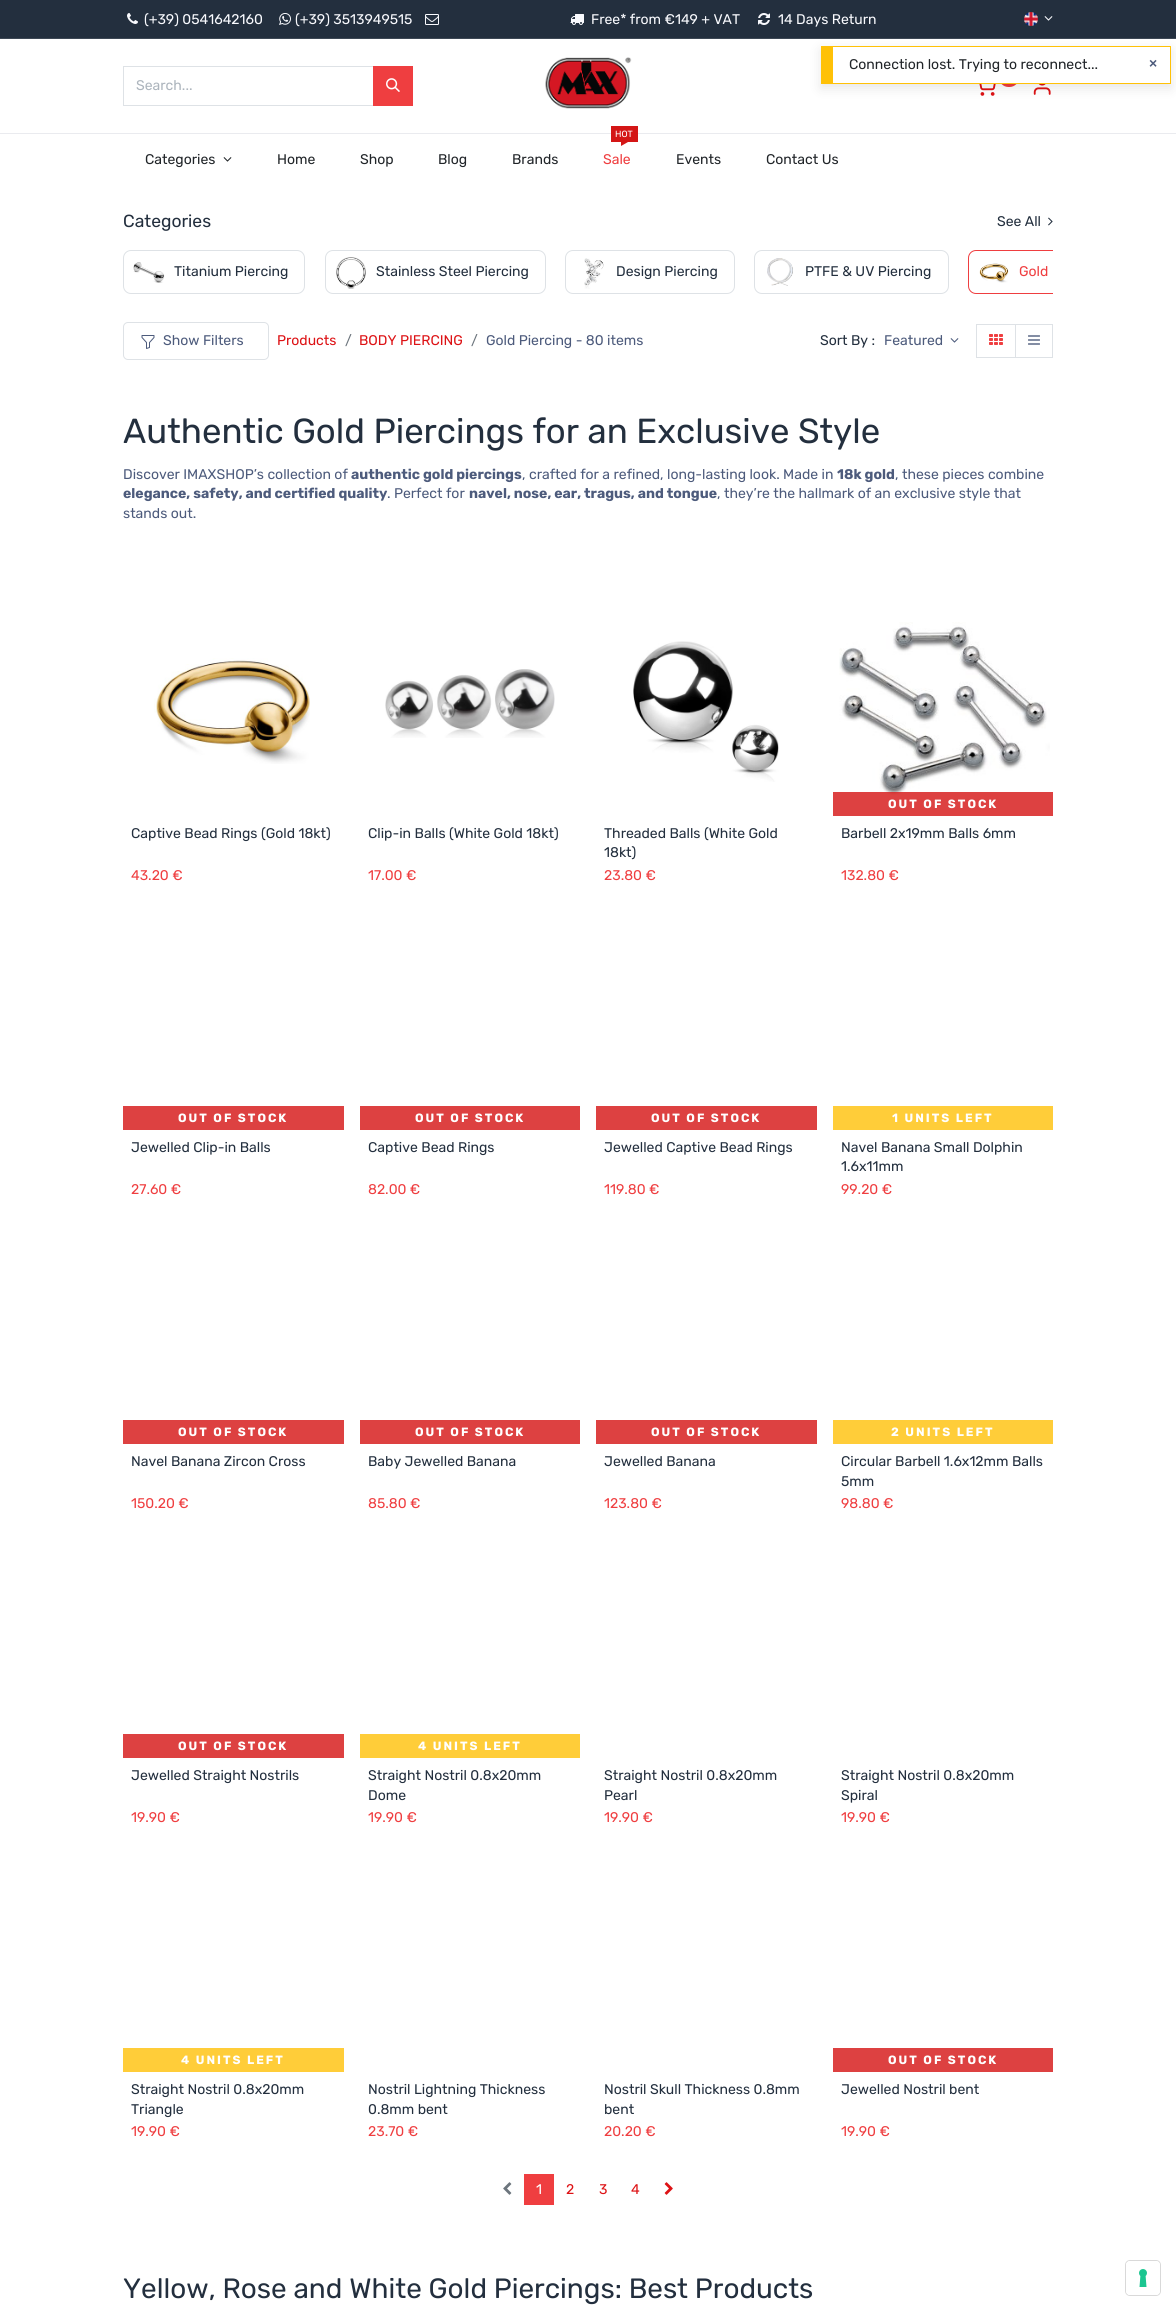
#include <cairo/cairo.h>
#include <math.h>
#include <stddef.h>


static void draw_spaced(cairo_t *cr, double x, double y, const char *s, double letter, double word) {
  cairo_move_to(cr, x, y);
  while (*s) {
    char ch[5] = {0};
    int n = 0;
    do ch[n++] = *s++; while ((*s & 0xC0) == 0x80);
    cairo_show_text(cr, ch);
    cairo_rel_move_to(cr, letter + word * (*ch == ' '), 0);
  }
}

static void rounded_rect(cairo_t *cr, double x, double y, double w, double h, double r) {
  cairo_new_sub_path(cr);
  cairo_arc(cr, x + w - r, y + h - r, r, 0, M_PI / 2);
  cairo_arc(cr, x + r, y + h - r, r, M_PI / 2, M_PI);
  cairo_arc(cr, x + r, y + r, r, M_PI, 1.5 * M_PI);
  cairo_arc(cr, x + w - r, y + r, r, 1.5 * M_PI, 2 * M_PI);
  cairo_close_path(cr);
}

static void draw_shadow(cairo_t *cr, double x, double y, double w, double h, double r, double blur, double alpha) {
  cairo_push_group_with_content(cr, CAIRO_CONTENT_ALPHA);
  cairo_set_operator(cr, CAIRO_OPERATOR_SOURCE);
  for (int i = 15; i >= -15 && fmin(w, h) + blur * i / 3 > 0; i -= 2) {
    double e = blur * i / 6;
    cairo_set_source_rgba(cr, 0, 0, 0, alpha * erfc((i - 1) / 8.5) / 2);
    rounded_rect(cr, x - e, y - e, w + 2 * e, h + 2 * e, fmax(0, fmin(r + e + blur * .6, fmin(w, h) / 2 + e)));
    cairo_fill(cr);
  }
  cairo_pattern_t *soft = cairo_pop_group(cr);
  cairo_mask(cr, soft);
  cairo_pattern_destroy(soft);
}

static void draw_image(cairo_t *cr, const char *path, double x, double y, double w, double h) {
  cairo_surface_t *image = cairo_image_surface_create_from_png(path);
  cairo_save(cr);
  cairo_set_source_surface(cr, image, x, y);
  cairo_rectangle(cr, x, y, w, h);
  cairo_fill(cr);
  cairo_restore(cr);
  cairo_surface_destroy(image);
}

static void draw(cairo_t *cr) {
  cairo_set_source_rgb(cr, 1, 1, 1);
  cairo_paint(cr);
  cairo_set_source_rgb(cr, 35 / 255.0, 47 / 255.0, 62 / 255.0);
  cairo_rectangle(cr, 0, 0, 1176, 38);
  cairo_fill(cr);
  cairo_set_source_rgb(cr, 61 / 255.0, 72 / 255.0, 85 / 255.0);
  cairo_rectangle(cr, 0, 38, 1176, 1);
  cairo_fill(cr);
  draw_image(cr, "images/1.png", 127, 13, 11, 11);
  draw_image(cr, "images/2.png", 279, 13, 12, 12);
  draw_image(cr, "images/3.png", 425, 14, 14, 11);
  draw_image(cr, "images/4.png", 570, 14, 14, 11);
  draw_image(cr, "images/5.png", 758, 13, 12, 12);
  draw_image(cr, "images/6.png", 1024, 12, 14, 14);
  draw_image(cr, "images/7.png", 1044, 16, 9, 5);
  cairo_set_source_rgb(cr, 234 / 255.0, 235 / 255.0, 239 / 255.0);
  cairo_rectangle(cr, 0, 133, 1176, 1);
  cairo_fill(cr);
  cairo_rectangle(cr, 123.5, 66.5, 250, 39);
  cairo_set_source_rgb(cr, 222 / 255.0, 226 / 255.0, 230 / 255.0);
  cairo_set_line_width(cr, 1);
  cairo_stroke(cr);
  cairo_set_source_rgb(cr, 239 / 255.0, 62 / 255.0, 64 / 255.0);
  cairo_rectangle(cr, 373, 66, 40, 40);
  cairo_fill(cr);
  draw_image(cr, "images/8.png", 386, 78, 14, 14);
  draw_image(cr, "images/9.png", 545, 57, 87, 52);
  rounded_rect(cr, 999, 68, 20, 19, 9.5);
  cairo_fill(cr);
  draw_image(cr, "images/10.png", 979, 84, 17, 12);
  draw_image(cr, "images/11.png", 1033, 84, 18, 11);
  draw_image(cr, "images/12.png", 223, 157, 9, 5);
  cairo_set_source_rgb(cr, 212 / 255.0, 22 / 255.0, 22 / 255.0);
  cairo_rectangle(cr, 611, 126, 27, 16);
  cairo_fill(cr);
  cairo_new_path(cr);
  cairo_move_to(cr, 621, 142);
  cairo_line_to(cr, 628, 142);
  cairo_line_to(cr, 621, 146);
  cairo_close_path(cr);
  cairo_fill(cr);
  draw_image(cr, "images/13.png", 1048, 217, 5, 9);
  rounded_rect(cr, 123.5, 250.5, 181, 43, 7.5);
  cairo_set_source_rgb(cr, 222 / 255.0, 226 / 255.0, 230 / 255.0);
  cairo_stroke(cr);
  draw_image(cr, "images/14.png", 133, 262, 32, 21);
  rounded_rect(cr, 325.5, 250.5, 220, 43, 7.5);
  cairo_stroke(cr);
  draw_image(cr, "images/15.png", 336, 257, 30, 32);
  rounded_rect(cr, 565.5, 250.5, 169, 43, 7.5);
  cairo_stroke(cr);
  draw_image(cr, "images/16.png", 584, 258, 20, 31);
  rounded_rect(cr, 754.5, 250.5, 194, 43, 7.5);
  cairo_stroke(cr);
  draw_image(cr, "images/17.png", 767, 258, 26, 28);
  cairo_save(cr);
  cairo_rectangle(cr, 123, 250, 930, 48);
  cairo_clip(cr);
  rounded_rect(cr, 968.5, 250.5, 153, 43, 7.5);
  cairo_set_source_rgb(cr, 239 / 255.0, 62 / 255.0, 64 / 255.0);
  cairo_stroke(cr);
  cairo_restore(cr);
  draw_image(cr, "images/18.png", 979, 263, 30, 20);
  rounded_rect(cr, 123.5, 322.5, 145, 37, 4.5);
  cairo_stroke(cr);
  draw_image(cr, "images/19.png", 141, 335, 14, 14);
  draw_image(cr, "images/20.png", 950, 338, 9, 5);
  cairo_rectangle(cr, 1015.5, 324.5, 37, 33);
  cairo_stroke(cr);
  cairo_rectangle(cr, 976.5, 324.5, 39, 33);
  cairo_stroke(cr);
  draw_image(cr, "images/21.png", 989, 334, 14, 11);
  draw_image(cr, "images/22.png", 1028, 335, 12, 10);
  draw_image(cr, "images/23.png", 154, 658, 156, 106);
  draw_image(cr, "images/24.png", 385, 669, 170, 69);
  draw_image(cr, "images/25.png", 633, 641, 146, 141);
  draw_image(cr, "images/26.png", 839, 622, 211, 173);
  cairo_set_source_rgba(cr, 212 / 255.0, 18 / 255.0, 18 / 255.0, 0.8);
  cairo_rectangle(cr, 833, 792, 220, 24);
  cairo_fill(cr);
  cairo_set_source_rgb(cr, 221 / 255.0, 65 / 255.0, 65 / 255.0);
  cairo_rectangle(cr, 123, 1106, 221, 24);
  cairo_fill(cr);
  cairo_rectangle(cr, 360, 1106, 220, 24);
  cairo_fill(cr);
  cairo_rectangle(cr, 596, 1106, 221, 24);
  cairo_fill(cr);
  cairo_set_source_rgb(cr, 1, 205 / 255.0, 57 / 255.0);
  cairo_rectangle(cr, 833, 1106, 220, 24);
  cairo_fill(cr);
  cairo_set_source_rgb(cr, 221 / 255.0, 65 / 255.0, 65 / 255.0);
  cairo_rectangle(cr, 123, 1420, 221, 24);
  cairo_fill(cr);
  cairo_rectangle(cr, 360, 1420, 220, 24);
  cairo_fill(cr);
  cairo_rectangle(cr, 596, 1420, 221, 24);
  cairo_fill(cr);
  cairo_set_source_rgb(cr, 1, 205 / 255.0, 57 / 255.0);
  cairo_rectangle(cr, 833, 1420, 220, 24);
  cairo_fill(cr);
  cairo_set_source_rgb(cr, 221 / 255.0, 65 / 255.0, 65 / 255.0);
  cairo_rectangle(cr, 123, 1734, 221, 24);
  cairo_fill(cr);
  cairo_set_source_rgb(cr, 1, 205 / 255.0, 57 / 255.0);
  cairo_rectangle(cr, 360, 1734, 220, 24);
  cairo_fill(cr);
  cairo_rectangle(cr, 123, 2048, 221, 24);
  cairo_fill(cr);
  cairo_set_source_rgb(cr, 221 / 255.0, 65 / 255.0, 65 / 255.0);
  cairo_rectangle(cr, 833, 2048, 220, 24);
  cairo_fill(cr);
  draw_image(cr, "images/27.png", 503, 2182, 9, 13);
  cairo_set_source_rgb(cr, 239 / 255.0, 62 / 255.0, 64 / 255.0);
  cairo_rectangle(cr, 524, 2174, 30, 31);
  cairo_fill(cr);
  draw_image(cr, "images/28.png", 664, 2182, 9, 13);
  cairo_set_source_rgb(cr, 0, 0, 0);
  draw_shadow(cr, 821, 50, 350, 38, 0, 6, 0.1);
  cairo_set_source_rgb(cr, 1, 1, 1);
  cairo_rectangle(cr, 833, 47, 337, 36);
  cairo_fill(cr);
  cairo_set_source_rgb(cr, 1, 193 / 255.0, 7 / 255.0);
  cairo_rectangle(cr, 833, 46, 338, 1);
  cairo_fill(cr);
  cairo_rectangle(cr, 1170, 46, 1, 38);
  cairo_fill(cr);
  cairo_rectangle(cr, 833, 83, 338, 1);
  cairo_fill(cr);
  cairo_rectangle(cr, 821, 46, 12, 38);
  cairo_fill(cr);
  rounded_rect(cr, 1125.5, 2260.5, 35, 35, 4.5);
  cairo_set_source_rgb(cr, 217 / 255.0, 217 / 255.0, 217 / 255.0);
  cairo_stroke(cr);
  cairo_set_source_rgb(cr, 1, 1, 1);
  rounded_rect(cr, 1126, 2261, 34, 34, 4);
  cairo_fill(cr);
  draw_image(cr, "images/29.png", 1139, 2269, 8, 18);
  cairo_select_font_face(cr, "Rubik", CAIRO_FONT_SLANT_NORMAL, CAIRO_FONT_WEIGHT_NORMAL);
  cairo_set_font_size(cr, 14);
  cairo_set_source_rgb(cr, 249 / 255.0, 250 / 255.0, 254 / 255.0);
  cairo_move_to(cr, 144, 24);
  cairo_show_text(cr, "(+39) 0541642160");
  cairo_move_to(cr, 295, 24);
  cairo_show_text(cr, "(+39) 3513949515");
  cairo_move_to(cr, 591, 24);
  cairo_show_text(cr, "Free* from €149 + VAT");
  cairo_move_to(cr, 778, 24);
  cairo_show_text(cr, "14 Days Return");
  cairo_set_source_rgb(cr, 173 / 255.0, 181 / 255.0, 189 / 255.0);
  cairo_move_to(cr, 136, 90);
  cairo_show_text(cr, "Search...");
  cairo_set_source_rgb(cr, 33 / 255.0, 37 / 255.0, 41 / 255.0);
  cairo_move_to(cr, 145, 164);
  cairo_show_text(cr, "Categories");
  cairo_move_to(cr, 277, 164);
  cairo_show_text(cr, "Home");
  cairo_move_to(cr, 360, 164);
  cairo_show_text(cr, "Shop");
  cairo_move_to(cr, 438, 164);
  cairo_show_text(cr, "Blog");
  cairo_move_to(cr, 512, 164);
  cairo_show_text(cr, "Brands");
  cairo_set_font_size(cr, 9);
  cairo_set_source_rgb(cr, 1, 1, 1);
  cairo_move_to(cr, 615, 137);
  cairo_show_text(cr, "HOT");
  cairo_set_font_size(cr, 14);
  cairo_set_source_rgb(cr, 239 / 255.0, 62 / 255.0, 64 / 255.0);
  cairo_move_to(cr, 603, 164);
  cairo_show_text(cr, "Sale");
  cairo_set_source_rgb(cr, 33 / 255.0, 37 / 255.0, 41 / 255.0);
  cairo_move_to(cr, 676, 164);
  cairo_show_text(cr, "Events");
  cairo_move_to(cr, 766, 164);
  cairo_show_text(cr, "Contact Us");
  cairo_set_font_size(cr, 17.5);
  cairo_set_source_rgb(cr, 35 / 255.0, 47 / 255.0, 62 / 255.0);
  cairo_move_to(cr, 123, 227);
  cairo_show_text(cr, "Categories");
  cairo_set_font_size(cr, 14);
  cairo_move_to(cr, 997, 226);
  cairo_show_text(cr, "See All");
  cairo_move_to(cr, 174, 276);
  cairo_show_text(cr, "Titanium Piercing");
  cairo_move_to(cr, 376, 276);
  cairo_show_text(cr, "Stainless Steel Piercing");
  cairo_move_to(cr, 616, 276);
  cairo_show_text(cr, "Design Piercing");
  cairo_move_to(cr, 805, 276);
  cairo_show_text(cr, "PTFE & UV Piercing");
  cairo_set_source_rgb(cr, 239 / 255.0, 62 / 255.0, 64 / 255.0);
  cairo_move_to(cr, 1019, 276);
  cairo_show_text(cr, "Gold");
  cairo_set_source_rgb(cr, 77 / 255.0, 91 / 255.0, 124 / 255.0);
  cairo_move_to(cr, 163, 345);
  cairo_show_text(cr, "Show Filters");
  cairo_set_source_rgb(cr, 221 / 255.0, 18 / 255.0, 21 / 255.0);
  cairo_move_to(cr, 277, 345);
  cairo_show_text(cr, "Products");
  cairo_set_source_rgb(cr, 108 / 255.0, 117 / 255.0, 125 / 255.0);
  cairo_move_to(cr, 345, 345);
  cairo_show_text(cr, "/");
  cairo_set_source_rgb(cr, 221 / 255.0, 18 / 255.0, 21 / 255.0);
  cairo_move_to(cr, 359, 345);
  cairo_show_text(cr, "BODY PIERCING");
  cairo_set_source_rgb(cr, 108 / 255.0, 117 / 255.0, 125 / 255.0);
  cairo_move_to(cr, 471, 345);
  cairo_show_text(cr, "/");
  cairo_set_source_rgb(cr, 77 / 255.0, 91 / 255.0, 124 / 255.0);
  cairo_move_to(cr, 486, 345);
  cairo_show_text(cr, "Gold Piercing - 80 items");
  cairo_set_source_rgb(cr, 35 / 255.0, 47 / 255.0, 62 / 255.0);
  cairo_move_to(cr, 820, 345);
  cairo_show_text(cr, "Sort By :");
  cairo_set_source_rgb(cr, 77 / 255.0, 91 / 255.0, 124 / 255.0);
  cairo_move_to(cr, 884, 345);
  cairo_show_text(cr, "Featured");
  cairo_set_font_size(cr, 34.75);
  cairo_set_source_rgb(cr, 35 / 255.0, 47 / 255.0, 62 / 255.0);
  cairo_move_to(cr, 123, 443);
  cairo_show_text(cr, "Authentic Gold Piercings for an Exclusive Style");
  cairo_set_font_size(cr, 14);
  cairo_set_source_rgb(cr, 77 / 255.0, 91 / 255.0, 124 / 255.0);
  cairo_move_to(cr, 123, 479);
  cairo_show_text(cr, "Discover IMAXSHOP’s collection of");
  cairo_select_font_face(cr, "Rubik", CAIRO_FONT_SLANT_NORMAL, CAIRO_FONT_WEIGHT_BOLD);
  cairo_move_to(cr, 351, 479);
  cairo_show_text(cr, "authentic gold piercings");
  cairo_select_font_face(cr, "Rubik", CAIRO_FONT_SLANT_NORMAL, CAIRO_FONT_WEIGHT_NORMAL);
  cairo_move_to(cr, 522, 479);
  cairo_show_text(cr, ", crafted for a refined, long-lasting look. Made in");
  cairo_select_font_face(cr, "Rubik", CAIRO_FONT_SLANT_NORMAL, CAIRO_FONT_WEIGHT_BOLD);
  cairo_move_to(cr, 837, 479);
  cairo_show_text(cr, "18k gold");
  cairo_select_font_face(cr, "Rubik", CAIRO_FONT_SLANT_NORMAL, CAIRO_FONT_WEIGHT_NORMAL);
  cairo_move_to(cr, 895, 479);
  cairo_show_text(cr, ", these pieces combine");
  cairo_select_font_face(cr, "Rubik", CAIRO_FONT_SLANT_NORMAL, CAIRO_FONT_WEIGHT_BOLD);
  cairo_move_to(cr, 123, 498);
  cairo_show_text(cr, "elegance, safety, and certified quality");
  cairo_select_font_face(cr, "Rubik", CAIRO_FONT_SLANT_NORMAL, CAIRO_FONT_WEIGHT_NORMAL);
  cairo_move_to(cr, 387, 498);
  cairo_show_text(cr, ". Perfect for");
  cairo_select_font_face(cr, "Rubik", CAIRO_FONT_SLANT_NORMAL, CAIRO_FONT_WEIGHT_BOLD);
  cairo_move_to(cr, 469, 498);
  cairo_show_text(cr, "navel, nose, ear, tragus, and tongue");
  cairo_select_font_face(cr, "Rubik", CAIRO_FONT_SLANT_NORMAL, CAIRO_FONT_WEIGHT_NORMAL);
  cairo_move_to(cr, 717, 498);
  cairo_show_text(cr, ", they’re the hallmark of an exclusive style that");
  cairo_move_to(cr, 123, 518);
  cairo_show_text(cr, "stands out.");
  cairo_set_source_rgb(cr, 35 / 255.0, 47 / 255.0, 62 / 255.0);
  cairo_move_to(cr, 131, 838);
  cairo_show_text(cr, "Captive Bead Rings (Gold 18kt)");
  cairo_set_source_rgb(cr, 239 / 255.0, 62 / 255.0, 64 / 255.0);
  cairo_move_to(cr, 131, 880);
  cairo_show_text(cr, "43.20 €");
  cairo_set_source_rgb(cr, 35 / 255.0, 47 / 255.0, 62 / 255.0);
  cairo_move_to(cr, 368, 838);
  cairo_show_text(cr, "Clip-in Balls (White Gold 18kt)");
  cairo_set_source_rgb(cr, 239 / 255.0, 62 / 255.0, 64 / 255.0);
  cairo_move_to(cr, 368, 880);
  cairo_show_text(cr, "17.00 €");
  cairo_set_source_rgb(cr, 35 / 255.0, 47 / 255.0, 62 / 255.0);
  cairo_move_to(cr, 604, 838);
  cairo_show_text(cr, "Threaded Balls (White Gold");
  cairo_move_to(cr, 604, 857);
  cairo_show_text(cr, "18kt)");
  cairo_set_source_rgb(cr, 239 / 255.0, 62 / 255.0, 64 / 255.0);
  cairo_move_to(cr, 604, 880);
  cairo_show_text(cr, "23.80 €");
  cairo_select_font_face(cr, "Rubik", CAIRO_FONT_SLANT_NORMAL, CAIRO_FONT_WEIGHT_BOLD);
  cairo_set_font_size(cr, 12);
  cairo_set_source_rgb(cr, 1, 1, 1);
  draw_spaced(cr, 888, 808, "OUT OF STOCK", 2, 0);
  cairo_select_font_face(cr, "Rubik", CAIRO_FONT_SLANT_NORMAL, CAIRO_FONT_WEIGHT_NORMAL);
  cairo_set_font_size(cr, 14);
  cairo_set_source_rgb(cr, 35 / 255.0, 47 / 255.0, 62 / 255.0);
  cairo_move_to(cr, 841, 838);
  cairo_show_text(cr, "Barbell 2x19mm Balls 6mm");
  cairo_set_source_rgb(cr, 239 / 255.0, 62 / 255.0, 64 / 255.0);
  cairo_move_to(cr, 841, 880);
  cairo_show_text(cr, "132.80 €");
  cairo_select_font_face(cr, "Rubik", CAIRO_FONT_SLANT_NORMAL, CAIRO_FONT_WEIGHT_BOLD);
  cairo_set_font_size(cr, 12);
  cairo_set_source_rgb(cr, 1, 1, 1);
  draw_spaced(cr, 178, 1122, "OUT OF STOCK", 2, 0);
  cairo_select_font_face(cr, "Rubik", CAIRO_FONT_SLANT_NORMAL, CAIRO_FONT_WEIGHT_NORMAL);
  cairo_set_font_size(cr, 14);
  cairo_set_source_rgb(cr, 35 / 255.0, 47 / 255.0, 62 / 255.0);
  cairo_move_to(cr, 131, 1152);
  cairo_show_text(cr, "Jewelled Clip-in Balls");
  cairo_set_source_rgb(cr, 239 / 255.0, 62 / 255.0, 64 / 255.0);
  cairo_move_to(cr, 131, 1194);
  cairo_show_text(cr, "27.60 €");
  cairo_select_font_face(cr, "Rubik", CAIRO_FONT_SLANT_NORMAL, CAIRO_FONT_WEIGHT_BOLD);
  cairo_set_font_size(cr, 12);
  cairo_set_source_rgb(cr, 1, 1, 1);
  draw_spaced(cr, 415, 1122, "OUT OF STOCK", 2, 0);
  cairo_select_font_face(cr, "Rubik", CAIRO_FONT_SLANT_NORMAL, CAIRO_FONT_WEIGHT_NORMAL);
  cairo_set_font_size(cr, 14);
  cairo_set_source_rgb(cr, 35 / 255.0, 47 / 255.0, 62 / 255.0);
  cairo_move_to(cr, 368, 1152);
  cairo_show_text(cr, "Captive Bead Rings");
  cairo_set_source_rgb(cr, 239 / 255.0, 62 / 255.0, 64 / 255.0);
  cairo_move_to(cr, 368, 1194);
  cairo_show_text(cr, "82.00 €");
  cairo_select_font_face(cr, "Rubik", CAIRO_FONT_SLANT_NORMAL, CAIRO_FONT_WEIGHT_BOLD);
  cairo_set_font_size(cr, 12);
  cairo_set_source_rgb(cr, 1, 1, 1);
  draw_spaced(cr, 651, 1122, "OUT OF STOCK", 2, 0);
  cairo_select_font_face(cr, "Rubik", CAIRO_FONT_SLANT_NORMAL, CAIRO_FONT_WEIGHT_NORMAL);
  cairo_set_font_size(cr, 14);
  cairo_set_source_rgb(cr, 35 / 255.0, 47 / 255.0, 62 / 255.0);
  cairo_move_to(cr, 604, 1152);
  cairo_show_text(cr, "Jewelled Captive Bead Rings");
  cairo_set_source_rgb(cr, 239 / 255.0, 62 / 255.0, 64 / 255.0);
  cairo_move_to(cr, 604, 1194);
  cairo_show_text(cr, "119.80 €");
  cairo_select_font_face(cr, "Rubik", CAIRO_FONT_SLANT_NORMAL, CAIRO_FONT_WEIGHT_BOLD);
  cairo_set_font_size(cr, 12);
  cairo_set_source_rgb(cr, 1, 1, 1);
  draw_spaced(cr, 892, 1122, "1 UNITS LEFT", 2, 0);
  cairo_select_font_face(cr, "Rubik", CAIRO_FONT_SLANT_NORMAL, CAIRO_FONT_WEIGHT_NORMAL);
  cairo_set_font_size(cr, 14);
  cairo_set_source_rgb(cr, 35 / 255.0, 47 / 255.0, 62 / 255.0);
  cairo_move_to(cr, 841, 1152);
  cairo_show_text(cr, "Navel Banana Small Dolphin");
  cairo_move_to(cr, 841, 1171);
  cairo_show_text(cr, "1.6x11mm");
  cairo_set_source_rgb(cr, 239 / 255.0, 62 / 255.0, 64 / 255.0);
  cairo_move_to(cr, 841, 1194);
  cairo_show_text(cr, "99.20 €");
  cairo_select_font_face(cr, "Rubik", CAIRO_FONT_SLANT_NORMAL, CAIRO_FONT_WEIGHT_BOLD);
  cairo_set_font_size(cr, 12);
  cairo_set_source_rgb(cr, 1, 1, 1);
  draw_spaced(cr, 178, 1436, "OUT OF STOCK", 2, 0);
  cairo_select_font_face(cr, "Rubik", CAIRO_FONT_SLANT_NORMAL, CAIRO_FONT_WEIGHT_NORMAL);
  cairo_set_font_size(cr, 14);
  cairo_set_source_rgb(cr, 35 / 255.0, 47 / 255.0, 62 / 255.0);
  cairo_move_to(cr, 131, 1466);
  cairo_show_text(cr, "Navel Banana Zircon Cross");
  cairo_set_source_rgb(cr, 239 / 255.0, 62 / 255.0, 64 / 255.0);
  cairo_move_to(cr, 131, 1508);
  cairo_show_text(cr, "150.20 €");
  cairo_select_font_face(cr, "Rubik", CAIRO_FONT_SLANT_NORMAL, CAIRO_FONT_WEIGHT_BOLD);
  cairo_set_font_size(cr, 12);
  cairo_set_source_rgb(cr, 1, 1, 1);
  draw_spaced(cr, 415, 1436, "OUT OF STOCK", 2, 0);
  cairo_select_font_face(cr, "Rubik", CAIRO_FONT_SLANT_NORMAL, CAIRO_FONT_WEIGHT_NORMAL);
  cairo_set_font_size(cr, 14);
  cairo_set_source_rgb(cr, 35 / 255.0, 47 / 255.0, 62 / 255.0);
  cairo_move_to(cr, 368, 1466);
  cairo_show_text(cr, "Baby Jewelled Banana");
  cairo_set_source_rgb(cr, 239 / 255.0, 62 / 255.0, 64 / 255.0);
  cairo_move_to(cr, 368, 1508);
  cairo_show_text(cr, "85.80 €");
  cairo_select_font_face(cr, "Rubik", CAIRO_FONT_SLANT_NORMAL, CAIRO_FONT_WEIGHT_BOLD);
  cairo_set_font_size(cr, 12);
  cairo_set_source_rgb(cr, 1, 1, 1);
  draw_spaced(cr, 651, 1436, "OUT OF STOCK", 2, 0);
  cairo_select_font_face(cr, "Rubik", CAIRO_FONT_SLANT_NORMAL, CAIRO_FONT_WEIGHT_NORMAL);
  cairo_set_font_size(cr, 14);
  cairo_set_source_rgb(cr, 35 / 255.0, 47 / 255.0, 62 / 255.0);
  cairo_move_to(cr, 604, 1466);
  cairo_show_text(cr, "Jewelled Banana");
  cairo_set_source_rgb(cr, 239 / 255.0, 62 / 255.0, 64 / 255.0);
  cairo_move_to(cr, 604, 1508);
  cairo_show_text(cr, "123.80 €");
  cairo_select_font_face(cr, "Rubik", CAIRO_FONT_SLANT_NORMAL, CAIRO_FONT_WEIGHT_BOLD);
  cairo_set_font_size(cr, 12);
  cairo_set_source_rgb(cr, 1, 1, 1);
  draw_spaced(cr, 891, 1436, "2 UNITS LEFT", 2, 0);
  cairo_select_font_face(cr, "Rubik", CAIRO_FONT_SLANT_NORMAL, CAIRO_FONT_WEIGHT_NORMAL);
  cairo_set_font_size(cr, 14);
  cairo_set_source_rgb(cr, 35 / 255.0, 47 / 255.0, 62 / 255.0);
  cairo_move_to(cr, 841, 1466);
  cairo_show_text(cr, "Circular Barbell 1.6x12mm Balls");
  cairo_move_to(cr, 841, 1486);
  cairo_show_text(cr, "5mm");
  cairo_set_source_rgb(cr, 239 / 255.0, 62 / 255.0, 64 / 255.0);
  cairo_move_to(cr, 841, 1508);
  cairo_show_text(cr, "98.80 €");
  cairo_select_font_face(cr, "Rubik", CAIRO_FONT_SLANT_NORMAL, CAIRO_FONT_WEIGHT_BOLD);
  cairo_set_font_size(cr, 12);
  cairo_set_source_rgb(cr, 1, 1, 1);
  draw_spaced(cr, 178, 1750, "OUT OF STOCK", 2, 0);
  cairo_select_font_face(cr, "Rubik", CAIRO_FONT_SLANT_NORMAL, CAIRO_FONT_WEIGHT_NORMAL);
  cairo_set_font_size(cr, 14);
  cairo_set_source_rgb(cr, 35 / 255.0, 47 / 255.0, 62 / 255.0);
  cairo_move_to(cr, 131, 1780);
  cairo_show_text(cr, "Jewelled Straight Nostrils");
  cairo_set_source_rgb(cr, 239 / 255.0, 62 / 255.0, 64 / 255.0);
  cairo_move_to(cr, 131, 1822);
  cairo_show_text(cr, "19.90 €");
  cairo_select_font_face(cr, "Rubik", CAIRO_FONT_SLANT_NORMAL, CAIRO_FONT_WEIGHT_BOLD);
  cairo_set_font_size(cr, 12);
  cairo_set_source_rgb(cr, 1, 1, 1);
  draw_spaced(cr, 418, 1750, "4 UNITS LEFT", 2, 0);
  cairo_select_font_face(cr, "Rubik", CAIRO_FONT_SLANT_NORMAL, CAIRO_FONT_WEIGHT_NORMAL);
  cairo_set_font_size(cr, 14);
  cairo_set_source_rgb(cr, 35 / 255.0, 47 / 255.0, 62 / 255.0);
  cairo_move_to(cr, 368, 1780);
  cairo_show_text(cr, "Straight Nostril 0.8x20mm");
  cairo_move_to(cr, 368, 1800);
  cairo_show_text(cr, "Dome");
  cairo_set_source_rgb(cr, 239 / 255.0, 62 / 255.0, 64 / 255.0);
  cairo_move_to(cr, 368, 1822);
  cairo_show_text(cr, "19.90 €");
  cairo_set_source_rgb(cr, 35 / 255.0, 47 / 255.0, 62 / 255.0);
  cairo_move_to(cr, 604, 1780);
  cairo_show_text(cr, "Straight Nostril 0.8x20mm");
  cairo_move_to(cr, 604, 1800);
  cairo_show_text(cr, "Pearl");
  cairo_set_source_rgb(cr, 239 / 255.0, 62 / 255.0, 64 / 255.0);
  cairo_move_to(cr, 604, 1822);
  cairo_show_text(cr, "19.90 €");
  cairo_set_source_rgb(cr, 35 / 255.0, 47 / 255.0, 62 / 255.0);
  cairo_move_to(cr, 841, 1780);
  cairo_show_text(cr, "Straight Nostril 0.8x20mm");
  cairo_move_to(cr, 841, 1800);
  cairo_show_text(cr, "Spiral");
  cairo_set_source_rgb(cr, 239 / 255.0, 62 / 255.0, 64 / 255.0);
  cairo_move_to(cr, 841, 1822);
  cairo_show_text(cr, "19.90 €");
  cairo_select_font_face(cr, "Rubik", CAIRO_FONT_SLANT_NORMAL, CAIRO_FONT_WEIGHT_BOLD);
  cairo_set_font_size(cr, 12);
  cairo_set_source_rgb(cr, 1, 1, 1);
  draw_spaced(cr, 181, 2064, "4 UNITS LEFT", 2, 0);
  cairo_select_font_face(cr, "Rubik", CAIRO_FONT_SLANT_NORMAL, CAIRO_FONT_WEIGHT_NORMAL);
  cairo_set_font_size(cr, 14);
  cairo_set_source_rgb(cr, 35 / 255.0, 47 / 255.0, 62 / 255.0);
  cairo_move_to(cr, 131, 2094);
  cairo_show_text(cr, "Straight Nostril 0.8x20mm");
  cairo_move_to(cr, 131, 2114);
  cairo_show_text(cr, "Triangle");
  cairo_set_source_rgb(cr, 239 / 255.0, 62 / 255.0, 64 / 255.0);
  cairo_move_to(cr, 131, 2136);
  cairo_show_text(cr, "19.90 €");
  cairo_set_source_rgb(cr, 35 / 255.0, 47 / 255.0, 62 / 255.0);
  cairo_move_to(cr, 368, 2094);
  cairo_show_text(cr, "Nostril Lightning Thickness");
  cairo_move_to(cr, 368, 2114);
  cairo_show_text(cr, "0.8mm bent");
  cairo_set_source_rgb(cr, 239 / 255.0, 62 / 255.0, 64 / 255.0);
  cairo_move_to(cr, 368, 2136);
  cairo_show_text(cr, "23.70 €");
  cairo_set_source_rgb(cr, 35 / 255.0, 47 / 255.0, 62 / 255.0);
  cairo_move_to(cr, 604, 2094);
  cairo_show_text(cr, "Nostril Skull Thickness 0.8mm");
  cairo_move_to(cr, 604, 2114);
  cairo_show_text(cr, "bent");
  cairo_set_source_rgb(cr, 239 / 255.0, 62 / 255.0, 64 / 255.0);
  cairo_move_to(cr, 604, 2136);
  cairo_show_text(cr, "20.20 €");
  cairo_select_font_face(cr, "Rubik", CAIRO_FONT_SLANT_NORMAL, CAIRO_FONT_WEIGHT_BOLD);
  cairo_set_font_size(cr, 12);
  cairo_set_source_rgb(cr, 1, 1, 1);
  draw_spaced(cr, 888, 2064, "OUT OF STOCK", 2, 0);
  cairo_select_font_face(cr, "Rubik", CAIRO_FONT_SLANT_NORMAL, CAIRO_FONT_WEIGHT_NORMAL);
  cairo_set_font_size(cr, 14);
  cairo_set_source_rgb(cr, 35 / 255.0, 47 / 255.0, 62 / 255.0);
  cairo_move_to(cr, 841, 2094);
  cairo_show_text(cr, "Jewelled Nostril bent");
  cairo_set_source_rgb(cr, 239 / 255.0, 62 / 255.0, 64 / 255.0);
  cairo_move_to(cr, 841, 2136);
  cairo_show_text(cr, "19.90 €");
  cairo_set_source_rgb(cr, 1, 1, 1);
  cairo_move_to(cr, 536, 2194);
  cairo_show_text(cr, "1");
  cairo_set_source_rgb(cr, 221 / 255.0, 18 / 255.0, 21 / 255.0);
  cairo_move_to(cr, 566, 2194);
  cairo_show_text(cr, "2");
  cairo_move_to(cr, 599, 2194);
  cairo_show_text(cr, "3");
  cairo_move_to(cr, 631, 2194);
  cairo_show_text(cr, "4");
  cairo_set_font_size(cr, 27.9);
  cairo_set_source_rgb(cr, 35 / 255.0, 47 / 255.0, 62 / 255.0);
  cairo_move_to(cr, 123, 2298);
  cairo_show_text(cr, "Yellow, Rose and White Gold Piercings: Best Products");
  cairo_set_font_size(cr, 14);
  cairo_set_source_rgb(cr, 33 / 255.0, 37 / 255.0, 41 / 255.0);
  cairo_move_to(cr, 849, 69);
  cairo_show_text(cr, "Connection lost. Trying to reconnect...");
  cairo_select_font_face(cr, "Liberation Sans", CAIRO_FONT_SLANT_NORMAL, CAIRO_FONT_WEIGHT_BOLD);
  cairo_set_source_rgb(cr, 77 / 255.0, 91 / 255.0, 124 / 255.0);
  cairo_move_to(cr, 1149, 68);
  cairo_show_text(cr, "×");
}

int main(void) {
  cairo_surface_t *surface = cairo_image_surface_create(CAIRO_FORMAT_RGB24, 1176, 2311);
  cairo_t *cr = cairo_create(surface);
  cairo_font_options_t *options = cairo_font_options_create();
  cairo_font_options_set_hint_metrics(options, CAIRO_HINT_METRICS_OFF);
  cairo_font_options_set_hint_style(options, CAIRO_HINT_STYLE_NONE);
  cairo_set_font_options(cr, options);
  cairo_set_miter_limit(cr, 4);
  draw(cr);
  cairo_surface_write_to_png(surface, "out.png");
  cairo_font_options_destroy(options);
  cairo_destroy(cr);
  cairo_surface_destroy(surface);
  return 0;
}
